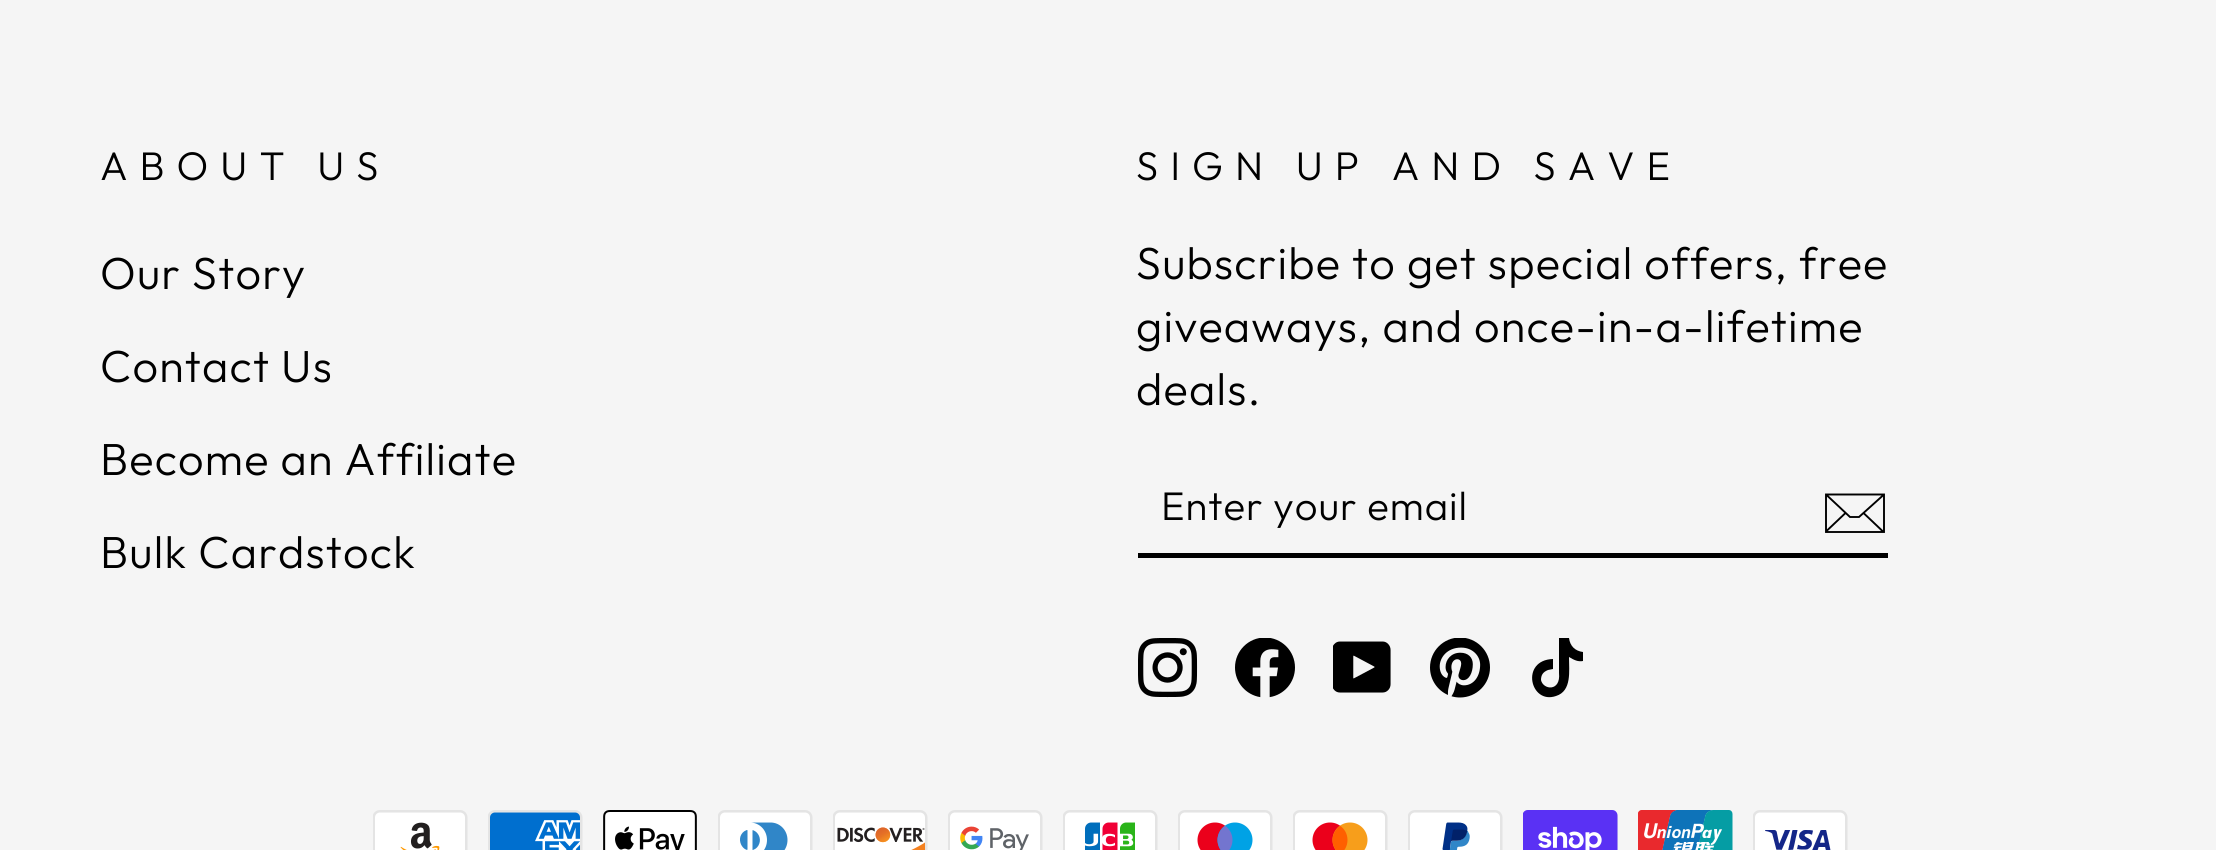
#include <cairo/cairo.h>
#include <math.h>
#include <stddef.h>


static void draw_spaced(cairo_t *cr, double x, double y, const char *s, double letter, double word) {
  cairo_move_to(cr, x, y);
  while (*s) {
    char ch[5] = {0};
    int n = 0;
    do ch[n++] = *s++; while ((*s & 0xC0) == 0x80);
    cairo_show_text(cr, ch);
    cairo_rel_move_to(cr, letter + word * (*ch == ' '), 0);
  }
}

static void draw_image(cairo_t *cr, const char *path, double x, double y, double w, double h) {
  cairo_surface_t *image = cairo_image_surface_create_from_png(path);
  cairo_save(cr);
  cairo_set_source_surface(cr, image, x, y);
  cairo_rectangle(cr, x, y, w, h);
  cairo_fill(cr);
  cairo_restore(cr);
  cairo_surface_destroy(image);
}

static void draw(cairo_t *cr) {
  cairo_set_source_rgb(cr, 245 / 255.0, 245 / 255.0, 245 / 255.0);
  cairo_paint(cr);
  cairo_set_source_rgb(cr, 0, 0, 0);
  cairo_rectangle(cr, 1138, 553, 750, 5);
  cairo_fill(cr);
  cairo_new_path(cr);
  cairo_move_to(cr, 1884, 532);
  cairo_line_to(cr, 1826, 532);
  cairo_line_to(cr, 1826, 494.5);
  cairo_line_to(cr, 1884, 494.5);
  cairo_close_path(cr);
  cairo_move_to(cr, 1826, 494.5);
  cairo_line_to(cr, 1850, 517);
  cairo_line_to(cr, 1859, 517);
  cairo_line_to(cr, 1884, 494.5);
  cairo_move_to(cr, 1845.5, 513);
  cairo_line_to(cr, 1826.5, 531);
  cairo_move_to(cr, 1883.5, 532);
  cairo_line_to(cr, 1863.5, 513);
  cairo_set_line_width(cr, 1.9);
  cairo_stroke(cr);
  draw_image(cr, "images/1.png", 1138, 638, 60, 60);
  draw_image(cr, "images/2.png", 1235, 638, 60, 60);
  draw_image(cr, "images/3.png", 1333, 641, 58, 52);
  draw_image(cr, "images/4.png", 1430, 638, 60, 60);
  cairo_new_path(cr);
  cairo_move_to(cr, 1569, 638);
  cairo_curve_to(cr, 1570, 646, 1575, 651, 1583, 652);
  cairo_line_to(cr, 1583, 661);
  cairo_curve_to(cr, 1578, 662, 1574, 660, 1569, 657);
  cairo_curve_to(cr, 1569, 671, 1572, 691, 1556, 696);
  cairo_curve_to(cr, 1530, 705, 1520, 660, 1553, 659);
  cairo_line_to(cr, 1553, 669);
  cairo_line_to(cr, 1548, 670);
  cairo_curve_to(cr, 1543, 672, 1541, 675, 1541, 680);
  cairo_curve_to(cr, 1543, 690, 1561, 692, 1559, 673);
  cairo_line_to(cr, 1559, 638);
  cairo_close_path(cr);
  cairo_fill(cr);
  draw_image(cr, "images/5.png", 373, 810, 95, 40);
  draw_image(cr, "images/6.png", 488, 810, 95, 40);
  draw_image(cr, "images/7.png", 603, 810, 94, 40);
  draw_image(cr, "images/8.png", 718, 810, 95, 40);
  draw_image(cr, "images/9.png", 833, 810, 95, 40);
  draw_image(cr, "images/10.png", 948, 810, 95, 40);
  draw_image(cr, "images/11.png", 1063, 810, 95, 40);
  draw_image(cr, "images/12.png", 1178, 810, 95, 40);
  draw_image(cr, "images/13.png", 1293, 810, 95, 40);
  draw_image(cr, "images/14.png", 1408, 810, 95, 40);
  draw_image(cr, "images/15.png", 1523, 810, 95, 40);
  draw_image(cr, "images/16.png", 1638, 810, 95, 40);
  draw_image(cr, "images/17.png", 1753, 810, 95, 40);
  cairo_select_font_face(cr, "Outfit Light", CAIRO_FONT_SLANT_NORMAL, CAIRO_FONT_WEIGHT_NORMAL);
  cairo_set_font_size(cr, 40);
  draw_spaced(cr, 100, 180, "ABOUT US", 12, 0);
  cairo_set_font_size(cr, 45);
  draw_spaced(cr, 100, 289, "Our Story", 1.2, 0);
  draw_spaced(cr, 100, 382, "Contact Us", 1.2, 0);
  draw_spaced(cr, 100, 475, "Become an Affiliate", 1.2, 0);
  draw_spaced(cr, 100, 568, "Bulk Cardstock", 1.2, 0);
  cairo_set_font_size(cr, 40);
  draw_spaced(cr, 1136, 180, "SIGN UP AND SAVE", 12, 0);
  cairo_set_font_size(cr, 45);
  draw_spaced(cr, 1136, 279, "Subscribe to get special offers, free", 1.2, 0);
  draw_spaced(cr, 1136, 342, "giveaways, and once-in-a-lifetime", 1.2, 0);
  draw_spaced(cr, 1136, 405, "deals.", 1.2, 0);
  cairo_set_font_size(cr, 40);
  draw_spaced(cr, 1161, 520, "Enter your email", 1, 0);
}

int main(void) {
  cairo_surface_t *surface = cairo_image_surface_create(CAIRO_FORMAT_RGB24, 2216, 850);
  cairo_t *cr = cairo_create(surface);
  cairo_font_options_t *options = cairo_font_options_create();
  cairo_font_options_set_hint_metrics(options, CAIRO_HINT_METRICS_OFF);
  cairo_font_options_set_hint_style(options, CAIRO_HINT_STYLE_NONE);
  cairo_set_font_options(cr, options);
  cairo_set_miter_limit(cr, 4);
  draw(cr);
  cairo_surface_write_to_png(surface, "out.png");
  cairo_font_options_destroy(options);
  cairo_destroy(cr);
  cairo_surface_destroy(surface);
  return 0;
}
